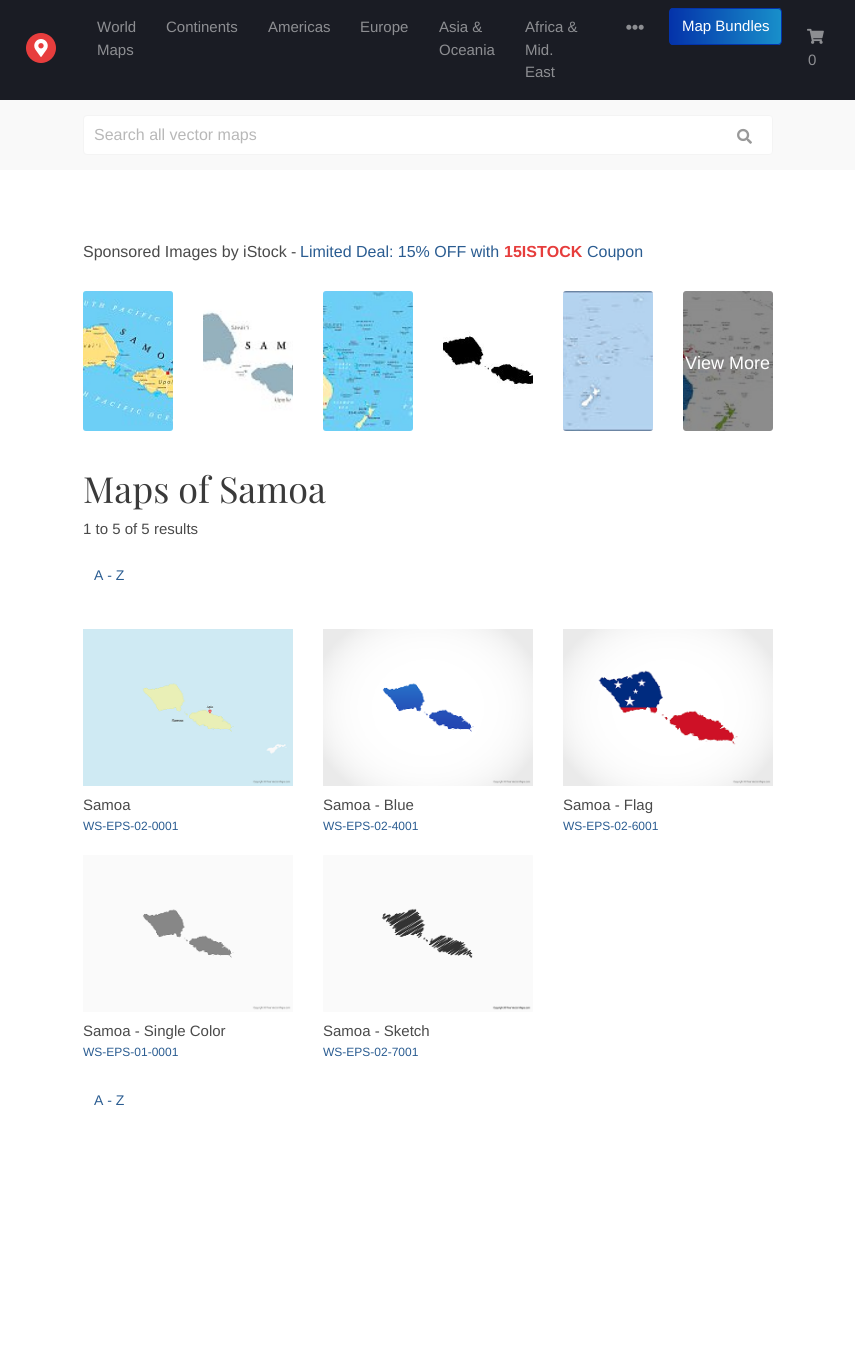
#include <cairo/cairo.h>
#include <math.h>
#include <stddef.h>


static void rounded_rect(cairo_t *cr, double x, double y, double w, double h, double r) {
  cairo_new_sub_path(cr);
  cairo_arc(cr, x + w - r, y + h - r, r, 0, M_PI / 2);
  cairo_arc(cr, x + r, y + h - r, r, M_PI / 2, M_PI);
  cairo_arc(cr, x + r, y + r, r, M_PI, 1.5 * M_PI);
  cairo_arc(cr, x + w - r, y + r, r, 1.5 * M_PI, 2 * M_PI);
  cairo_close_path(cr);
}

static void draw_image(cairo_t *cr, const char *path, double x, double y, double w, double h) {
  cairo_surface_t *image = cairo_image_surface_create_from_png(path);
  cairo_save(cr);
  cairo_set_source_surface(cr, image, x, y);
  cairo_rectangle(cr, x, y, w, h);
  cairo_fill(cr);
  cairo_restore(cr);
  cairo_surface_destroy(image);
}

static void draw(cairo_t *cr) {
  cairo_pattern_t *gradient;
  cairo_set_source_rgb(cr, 1, 1, 1);
  cairo_paint(cr);
  cairo_set_source_rgb(cr, 26 / 255.0, 28 / 255.0, 36 / 255.0);
  cairo_rectangle(cr, 0, 0, 855, 100);
  cairo_fill(cr);
  draw_image(cr, "images/1.png", 26, 33, 30, 30);
  draw_image(cr, "images/2.png", 626, 24, 18, 6);
  cairo_save(cr);
  rounded_rect(cr, 669, 8, 113, 37, 4);
  cairo_clip(cr);
  gradient = cairo_pattern_create_linear(670, 27, 781, 26);
  cairo_pattern_add_color_stop_rgba(gradient, 0, 4 / 255.0, 51 / 255.0, 170 / 255.0, 1);
  cairo_pattern_add_color_stop_rgba(gradient, 1, 24 / 255.0, 143 / 255.0, 202 / 255.0, 1);
  cairo_set_source(cr, gradient);
  cairo_pattern_destroy(gradient);
  cairo_rectangle(cr, 670, 8, 111, 37);
  cairo_fill(cr);
  cairo_restore(cr);
  rounded_rect(cr, 669.5, 8.5, 112, 36, 3.5);
  cairo_set_source_rgb(cr, 4 / 255.0, 51 / 255.0, 170 / 255.0);
  cairo_set_line_width(cr, 1);
  cairo_stroke(cr);
  draw_image(cr, "images/3.png", 807, 28, 17, 16);
  cairo_set_source_rgb(cr, 249 / 255.0, 249 / 255.0, 249 / 255.0);
  cairo_rectangle(cr, 0, 100, 855, 70);
  cairo_fill(cr);
  cairo_set_source_rgb(cr, 1, 1, 1);
  cairo_new_path(cr);
  cairo_move_to(cr, 87, 116);
  cairo_line_to(cr, 717, 116);
  cairo_line_to(cr, 717, 154);
  cairo_line_to(cr, 87, 154);
  cairo_curve_to(cr, 85.5, 154, 84, 152.5, 84, 151);
  cairo_line_to(cr, 84, 119);
  cairo_curve_to(cr, 84, 117.5, 85.5, 116, 87, 116);
  cairo_close_path(cr);
  cairo_fill(cr);
  cairo_set_source_rgb(cr, 244 / 255.0, 244 / 255.0, 244 / 255.0);
  cairo_set_fill_rule(cr, CAIRO_FILL_RULE_EVEN_ODD);
  cairo_new_path(cr);
  cairo_move_to(cr, 87, 115);
  cairo_line_to(cr, 717, 115);
  cairo_line_to(cr, 717, 155);
  cairo_line_to(cr, 87, 155);
  cairo_curve_to(cr, 85, 155, 83, 153, 83, 151);
  cairo_line_to(cr, 83, 119);
  cairo_curve_to(cr, 83, 117, 85, 115, 87, 115);
  cairo_close_path(cr);
  cairo_move_to(cr, 87, 116);
  cairo_line_to(cr, 717, 116);
  cairo_line_to(cr, 717, 154);
  cairo_line_to(cr, 87, 154);
  cairo_curve_to(cr, 85, 154, 84, 153, 84, 151);
  cairo_line_to(cr, 84, 119);
  cairo_curve_to(cr, 84, 117, 85, 116, 87, 116);
  cairo_close_path(cr);
  cairo_fill(cr);
  cairo_set_source_rgb(cr, 1, 1, 1);
  cairo_new_path(cr);
  cairo_move_to(cr, 717, 115);
  cairo_line_to(cr, 769, 115);
  cairo_curve_to(cr, 771, 115, 773, 117, 773, 119);
  cairo_line_to(cr, 773, 151);
  cairo_curve_to(cr, 773, 153, 771, 155, 769, 155);
  cairo_line_to(cr, 717, 155);
  cairo_close_path(cr);
  cairo_fill(cr);
  cairo_set_source_rgb(cr, 244 / 255.0, 244 / 255.0, 244 / 255.0);
  cairo_new_path(cr);
  cairo_move_to(cr, 717, 115);
  cairo_line_to(cr, 769, 115);
  cairo_curve_to(cr, 771, 115, 773, 117, 773, 119);
  cairo_line_to(cr, 773, 151);
  cairo_curve_to(cr, 773, 153, 771, 155, 769, 155);
  cairo_line_to(cr, 717, 155);
  cairo_close_path(cr);
  cairo_move_to(cr, 717, 116);
  cairo_line_to(cr, 769, 116);
  cairo_curve_to(cr, 771, 116, 772, 117, 772, 119);
  cairo_line_to(cr, 772, 151);
  cairo_curve_to(cr, 772, 153, 771, 154, 769, 154);
  cairo_line_to(cr, 717, 154);
  cairo_close_path(cr);
  cairo_fill(cr);
  draw_image(cr, "images/4.png", 737, 128, 15, 16);
  draw_image(cr, "images/5.png", 83, 291, 90, 140);
  draw_image(cr, "images/6.png", 203, 291, 90, 140);
  draw_image(cr, "images/7.png", 323, 291, 90, 140);
  draw_image(cr, "images/8.png", 443, 291, 90, 140);
  draw_image(cr, "images/9.png", 563, 291, 90, 140);
  draw_image(cr, "images/10.png", 683, 291, 90, 140);
  cairo_set_source_rgba(cr, 0, 0, 0, 0.45);
  rounded_rect(cr, 683, 291, 90, 140, 3);
  cairo_fill(cr);
  draw_image(cr, "images/11.png", 83, 629, 210, 157);
  draw_image(cr, "images/12.png", 323, 629, 210, 157);
  draw_image(cr, "images/13.png", 563, 629, 210, 157);
  draw_image(cr, "images/14.png", 83, 855, 210, 157);
  draw_image(cr, "images/15.png", 323, 855, 210, 157);
  cairo_select_font_face(cr, "Liberation Sans", CAIRO_FONT_SLANT_NORMAL, CAIRO_FONT_WEIGHT_NORMAL);
  cairo_set_font_size(cr, 15);
  cairo_set_source_rgb(cr, 141 / 255.0, 142 / 255.0, 146 / 255.0);
  cairo_move_to(cr, 97, 32);
  cairo_show_text(cr, "World");
  cairo_move_to(cr, 97, 55);
  cairo_show_text(cr, "Maps");
  cairo_move_to(cr, 166, 32);
  cairo_show_text(cr, "Continents");
  cairo_move_to(cr, 268, 32);
  cairo_show_text(cr, "Americas");
  cairo_move_to(cr, 360, 32);
  cairo_show_text(cr, "Europe");
  cairo_move_to(cr, 439, 32);
  cairo_show_text(cr, "Asia &");
  cairo_move_to(cr, 439, 55);
  cairo_show_text(cr, "Oceania");
  cairo_move_to(cr, 525, 32);
  cairo_show_text(cr, "Africa &");
  cairo_move_to(cr, 525, 55);
  cairo_show_text(cr, "Mid.");
  cairo_move_to(cr, 525, 77);
  cairo_show_text(cr, "East");
  cairo_set_source_rgb(cr, 1, 1, 1);
  cairo_move_to(cr, 682, 31);
  cairo_show_text(cr, "Map Bundles");
  cairo_set_source_rgb(cr, 141 / 255.0, 142 / 255.0, 146 / 255.0);
  cairo_move_to(cr, 808, 65);
  cairo_show_text(cr, "0");
  cairo_set_font_size(cr, 16);
  cairo_set_source_rgb(cr, 184 / 255.0, 184 / 255.0, 184 / 255.0);
  cairo_move_to(cr, 94, 140);
  cairo_show_text(cr, "Search all vector maps");
  cairo_set_source_rgb(cr, 74 / 255.0, 74 / 255.0, 74 / 255.0);
  cairo_move_to(cr, 83, 257);
  cairo_show_text(cr, "Sponsored Images by iStock -");
  cairo_set_source_rgb(cr, 42 / 255.0, 92 / 255.0, 145 / 255.0);
  cairo_move_to(cr, 300, 257);
  cairo_show_text(cr, "Limited Deal: 15% OFF with");
  cairo_select_font_face(cr, "Liberation Sans", CAIRO_FONT_SLANT_NORMAL, CAIRO_FONT_WEIGHT_BOLD);
  cairo_set_source_rgb(cr, 230 / 255.0, 61 / 255.0, 60 / 255.0);
  cairo_move_to(cr, 504, 257);
  cairo_show_text(cr, "15ISTOCK");
  cairo_select_font_face(cr, "Liberation Sans", CAIRO_FONT_SLANT_NORMAL, CAIRO_FONT_WEIGHT_NORMAL);
  cairo_set_source_rgb(cr, 42 / 255.0, 92 / 255.0, 145 / 255.0);
  cairo_move_to(cr, 587, 257);
  cairo_show_text(cr, "Coupon");
  cairo_set_font_size(cr, 18);
  cairo_set_source_rgb(cr, 1, 1, 1);
  cairo_move_to(cr, 685, 369);
  cairo_show_text(cr, "View More");
  cairo_select_font_face(cr, "Playfair Display", CAIRO_FONT_SLANT_NORMAL, CAIRO_FONT_WEIGHT_NORMAL);
  cairo_set_font_size(cr, 36);
  cairo_set_source_rgb(cr, 58 / 255.0, 58 / 255.0, 58 / 255.0);
  cairo_move_to(cr, 83, 503);
  cairo_show_text(cr, "Maps of Samoa");
  cairo_select_font_face(cr, "Liberation Sans", CAIRO_FONT_SLANT_NORMAL, CAIRO_FONT_WEIGHT_NORMAL);
  cairo_set_font_size(cr, 15);
  cairo_set_source_rgb(cr, 74 / 255.0, 74 / 255.0, 74 / 255.0);
  cairo_move_to(cr, 83, 534);
  cairo_show_text(cr, "1 to 5 of 5 results");
  cairo_set_font_size(cr, 14);
  cairo_set_source_rgb(cr, 42 / 255.0, 92 / 255.0, 145 / 255.0);
  cairo_move_to(cr, 94, 580);
  cairo_show_text(cr, "A - Z");
  cairo_set_font_size(cr, 15);
  cairo_set_source_rgb(cr, 74 / 255.0, 74 / 255.0, 74 / 255.0);
  cairo_move_to(cr, 83, 810);
  cairo_show_text(cr, "Samoa");
  cairo_set_font_size(cr, 12);
  cairo_set_source_rgb(cr, 42 / 255.0, 92 / 255.0, 145 / 255.0);
  cairo_move_to(cr, 83, 830);
  cairo_show_text(cr, "WS-EPS-02-0001");
  cairo_set_font_size(cr, 15);
  cairo_set_source_rgb(cr, 74 / 255.0, 74 / 255.0, 74 / 255.0);
  cairo_move_to(cr, 323, 810);
  cairo_show_text(cr, "Samoa - Blue");
  cairo_set_font_size(cr, 12);
  cairo_set_source_rgb(cr, 42 / 255.0, 92 / 255.0, 145 / 255.0);
  cairo_move_to(cr, 323, 830);
  cairo_show_text(cr, "WS-EPS-02-4001");
  cairo_set_font_size(cr, 15);
  cairo_set_source_rgb(cr, 74 / 255.0, 74 / 255.0, 74 / 255.0);
  cairo_move_to(cr, 563, 810);
  cairo_show_text(cr, "Samoa - Flag");
  cairo_set_font_size(cr, 12);
  cairo_set_source_rgb(cr, 42 / 255.0, 92 / 255.0, 145 / 255.0);
  cairo_move_to(cr, 563, 830);
  cairo_show_text(cr, "WS-EPS-02-6001");
  cairo_set_font_size(cr, 15);
  cairo_set_source_rgb(cr, 74 / 255.0, 74 / 255.0, 74 / 255.0);
  cairo_move_to(cr, 83, 1036);
  cairo_show_text(cr, "Samoa - Single Color");
  cairo_set_font_size(cr, 12);
  cairo_set_source_rgb(cr, 42 / 255.0, 92 / 255.0, 145 / 255.0);
  cairo_move_to(cr, 83, 1056);
  cairo_show_text(cr, "WS-EPS-01-0001");
  cairo_set_font_size(cr, 15);
  cairo_set_source_rgb(cr, 74 / 255.0, 74 / 255.0, 74 / 255.0);
  cairo_move_to(cr, 323, 1036);
  cairo_show_text(cr, "Samoa - Sketch");
  cairo_set_font_size(cr, 12);
  cairo_set_source_rgb(cr, 42 / 255.0, 92 / 255.0, 145 / 255.0);
  cairo_move_to(cr, 323, 1056);
  cairo_show_text(cr, "WS-EPS-02-7001");
  cairo_set_font_size(cr, 14);
  cairo_move_to(cr, 94, 1105);
  cairo_show_text(cr, "A - Z");
}

int main(void) {
  cairo_surface_t *surface = cairo_image_surface_create(CAIRO_FORMAT_RGB24, 855, 1356);
  cairo_t *cr = cairo_create(surface);
  cairo_font_options_t *options = cairo_font_options_create();
  cairo_font_options_set_hint_metrics(options, CAIRO_HINT_METRICS_OFF);
  cairo_font_options_set_hint_style(options, CAIRO_HINT_STYLE_NONE);
  cairo_set_font_options(cr, options);
  cairo_set_miter_limit(cr, 4);
  draw(cr);
  cairo_surface_write_to_png(surface, "out.png");
  cairo_font_options_destroy(options);
  cairo_destroy(cr);
  cairo_surface_destroy(surface);
  return 0;
}
